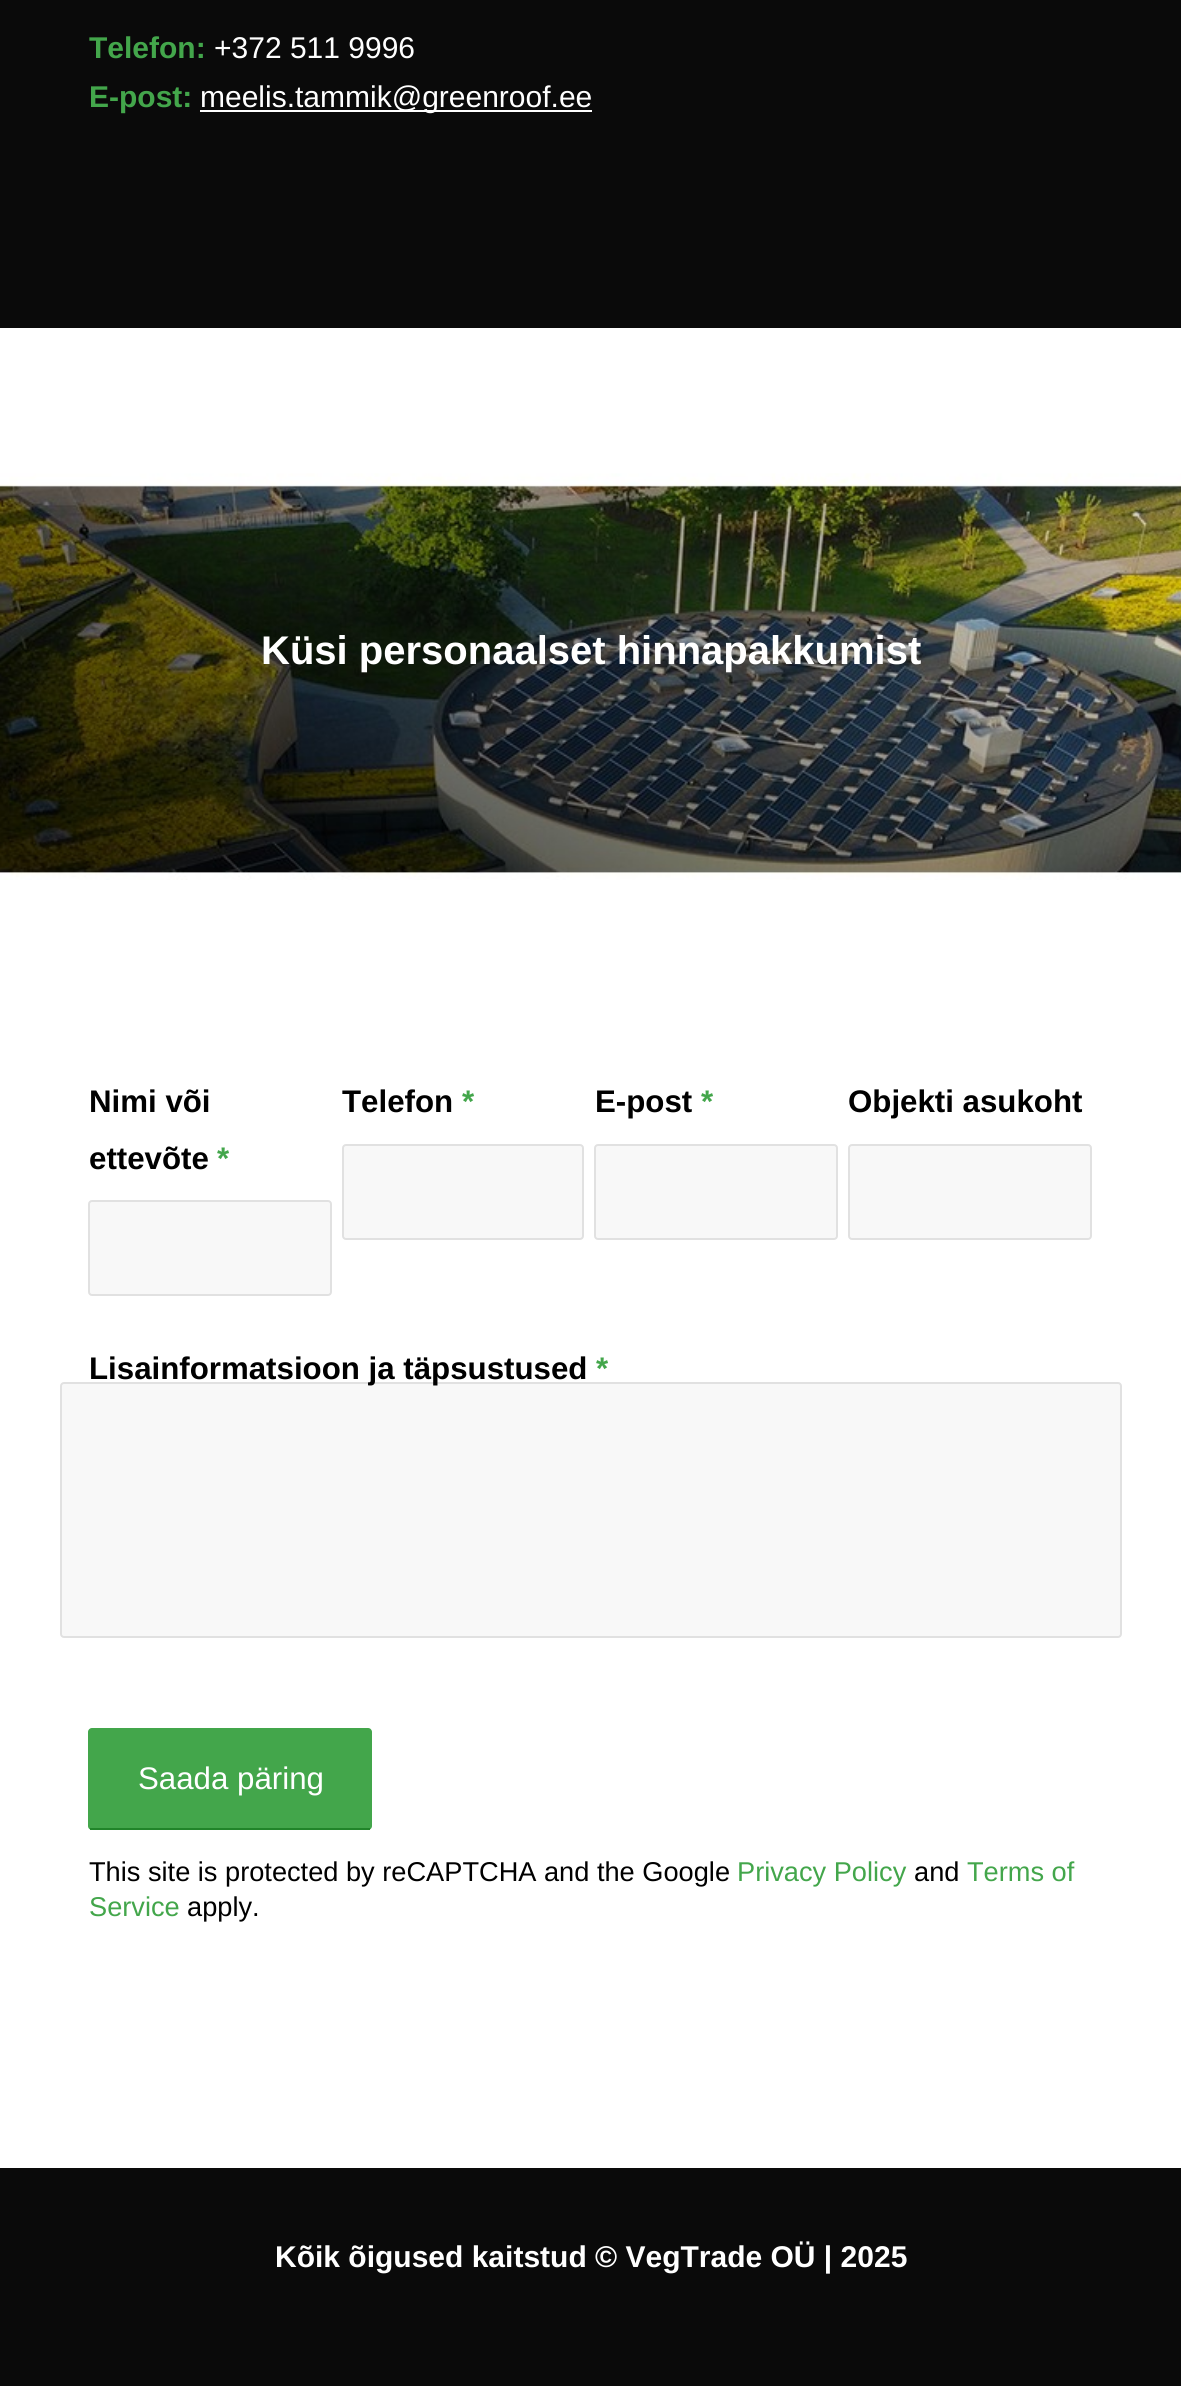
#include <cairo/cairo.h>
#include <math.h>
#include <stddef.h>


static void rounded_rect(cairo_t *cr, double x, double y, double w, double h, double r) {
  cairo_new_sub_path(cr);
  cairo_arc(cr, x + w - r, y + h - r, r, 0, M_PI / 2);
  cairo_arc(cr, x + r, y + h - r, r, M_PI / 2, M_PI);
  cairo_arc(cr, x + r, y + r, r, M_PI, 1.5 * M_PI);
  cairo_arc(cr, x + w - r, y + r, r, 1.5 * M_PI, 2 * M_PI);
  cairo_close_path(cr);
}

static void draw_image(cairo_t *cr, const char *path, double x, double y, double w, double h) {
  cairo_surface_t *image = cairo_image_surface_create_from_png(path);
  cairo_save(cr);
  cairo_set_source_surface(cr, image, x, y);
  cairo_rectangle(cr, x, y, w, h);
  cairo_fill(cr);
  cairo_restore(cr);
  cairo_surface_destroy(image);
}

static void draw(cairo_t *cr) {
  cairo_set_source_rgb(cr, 1, 1, 1);
  cairo_paint(cr);
  cairo_set_source_rgb(cr, 10 / 255.0, 10 / 255.0, 10 / 255.0);
  cairo_rectangle(cr, 0, 0, 1181, 328);
  cairo_fill(cr);
  cairo_set_source_rgb(cr, 1, 1, 1);
  cairo_rectangle(cr, 200, 110, 392, 2);
  cairo_fill(cr);
  draw_image(cr, "images/1.png", 0, 473, 1181, 407);
  cairo_set_source_rgb(cr, 248 / 255.0, 248 / 255.0, 248 / 255.0);
  rounded_rect(cr, 89, 1201, 242, 94, 3);
  cairo_fill_preserve(cr);
  cairo_set_source_rgb(cr, 225 / 255.0, 225 / 255.0, 225 / 255.0);
  cairo_stroke(cr);
  cairo_set_source_rgb(cr, 248 / 255.0, 248 / 255.0, 248 / 255.0);
  rounded_rect(cr, 343, 1145, 240, 94, 3);
  cairo_fill_preserve(cr);
  cairo_set_source_rgb(cr, 225 / 255.0, 225 / 255.0, 225 / 255.0);
  cairo_stroke(cr);
  cairo_set_source_rgb(cr, 248 / 255.0, 248 / 255.0, 248 / 255.0);
  rounded_rect(cr, 595, 1145, 242, 94, 3);
  cairo_fill_preserve(cr);
  cairo_set_source_rgb(cr, 225 / 255.0, 225 / 255.0, 225 / 255.0);
  cairo_stroke(cr);
  cairo_set_source_rgb(cr, 248 / 255.0, 248 / 255.0, 248 / 255.0);
  rounded_rect(cr, 849, 1145, 242, 94, 3);
  cairo_fill_preserve(cr);
  cairo_set_source_rgb(cr, 225 / 255.0, 225 / 255.0, 225 / 255.0);
  cairo_stroke(cr);
  cairo_set_source_rgb(cr, 248 / 255.0, 248 / 255.0, 248 / 255.0);
  rounded_rect(cr, 61, 1383, 1060, 254, 3);
  cairo_fill_preserve(cr);
  cairo_set_source_rgb(cr, 225 / 255.0, 225 / 255.0, 225 / 255.0);
  cairo_stroke(cr);
  cairo_set_source_rgb(cr, 67 / 255.0, 166 / 255.0, 75 / 255.0);
  rounded_rect(cr, 88, 1728, 284, 102, 4);
  cairo_fill(cr);
  cairo_set_source_rgb(cr, 33 / 255.0, 132 / 255.0, 41 / 255.0);
  cairo_rectangle(cr, 90, 1828, 280, 2);
  cairo_fill(cr);
  cairo_set_source_rgb(cr, 10 / 255.0, 10 / 255.0, 10 / 255.0);
  cairo_rectangle(cr, 0, 2168, 1181, 218);
  cairo_fill(cr);
  cairo_select_font_face(cr, "Liberation Sans", CAIRO_FONT_SLANT_NORMAL, CAIRO_FONT_WEIGHT_BOLD);
  cairo_set_font_size(cr, 30);
  cairo_set_source_rgb(cr, 67 / 255.0, 166 / 255.0, 75 / 255.0);
  cairo_move_to(cr, 89, 58);
  cairo_show_text(cr, "Telefon:");
  cairo_select_font_face(cr, "Liberation Sans", CAIRO_FONT_SLANT_NORMAL, CAIRO_FONT_WEIGHT_NORMAL);
  cairo_set_source_rgb(cr, 1, 1, 1);
  cairo_move_to(cr, 214, 58);
  cairo_show_text(cr, "+372 511 9996");
  cairo_select_font_face(cr, "Liberation Sans", CAIRO_FONT_SLANT_NORMAL, CAIRO_FONT_WEIGHT_BOLD);
  cairo_set_source_rgb(cr, 67 / 255.0, 166 / 255.0, 75 / 255.0);
  cairo_move_to(cr, 89, 107);
  cairo_show_text(cr, "E-post:");
  cairo_select_font_face(cr, "Liberation Sans", CAIRO_FONT_SLANT_NORMAL, CAIRO_FONT_WEIGHT_NORMAL);
  cairo_set_source_rgb(cr, 1, 1, 1);
  cairo_move_to(cr, 200, 107);
  cairo_show_text(cr, "meelis.tammik@greenroof.ee");
  cairo_select_font_face(cr, "Liberation Sans", CAIRO_FONT_SLANT_NORMAL, CAIRO_FONT_WEIGHT_BOLD);
  cairo_set_font_size(cr, 40);
  cairo_move_to(cr, 261, 664);
  cairo_show_text(cr, "Küsi personaalset hinnapakkumist");
  cairo_set_font_size(cr, 31.25);
  cairo_set_source_rgb(cr, 0, 0, 0);
  cairo_move_to(cr, 89, 1112);
  cairo_show_text(cr, "Nimi või");
  cairo_move_to(cr, 89, 1169);
  cairo_show_text(cr, "ettevõte");
  cairo_set_source_rgb(cr, 67 / 255.0, 166 / 255.0, 75 / 255.0);
  cairo_move_to(cr, 217, 1169);
  cairo_show_text(cr, "*");
  cairo_set_source_rgb(cr, 0, 0, 0);
  cairo_move_to(cr, 342, 1112);
  cairo_show_text(cr, "Telefon");
  cairo_set_source_rgb(cr, 67 / 255.0, 166 / 255.0, 75 / 255.0);
  cairo_move_to(cr, 462, 1112);
  cairo_show_text(cr, "*");
  cairo_set_source_rgb(cr, 0, 0, 0);
  cairo_move_to(cr, 595, 1112);
  cairo_show_text(cr, "E-post");
  cairo_set_source_rgb(cr, 67 / 255.0, 166 / 255.0, 75 / 255.0);
  cairo_move_to(cr, 701, 1112);
  cairo_show_text(cr, "*");
  cairo_set_source_rgb(cr, 0, 0, 0);
  cairo_move_to(cr, 848, 1112);
  cairo_show_text(cr, "Objekti asukoht");
  cairo_move_to(cr, 89, 1379);
  cairo_show_text(cr, "Lisainformatsioon ja täpsustused");
  cairo_set_source_rgb(cr, 67 / 255.0, 166 / 255.0, 75 / 255.0);
  cairo_move_to(cr, 596, 1379);
  cairo_show_text(cr, "*");
  cairo_select_font_face(cr, "Liberation Sans", CAIRO_FONT_SLANT_NORMAL, CAIRO_FONT_WEIGHT_NORMAL);
  cairo_set_source_rgb(cr, 1, 1, 1);
  cairo_move_to(cr, 138, 1789);
  cairo_show_text(cr, "Saada päring");
  cairo_set_font_size(cr, 27.2);
  cairo_set_source_rgb(cr, 0, 0, 0);
  cairo_move_to(cr, 89, 1881);
  cairo_show_text(cr, "This site is protected by reCAPTCHA and the Google");
  cairo_set_source_rgb(cr, 67 / 255.0, 166 / 255.0, 75 / 255.0);
  cairo_move_to(cr, 737, 1881);
  cairo_show_text(cr, "Privacy Policy");
  cairo_set_source_rgb(cr, 0, 0, 0);
  cairo_move_to(cr, 914, 1881);
  cairo_show_text(cr, "and");
  cairo_set_source_rgb(cr, 67 / 255.0, 166 / 255.0, 75 / 255.0);
  cairo_move_to(cr, 967, 1881);
  cairo_show_text(cr, "Terms of");
  cairo_move_to(cr, 89, 1916);
  cairo_show_text(cr, "Service");
  cairo_set_source_rgb(cr, 0, 0, 0);
  cairo_move_to(cr, 187, 1916);
  cairo_show_text(cr, "apply.");
  cairo_select_font_face(cr, "Liberation Sans", CAIRO_FONT_SLANT_NORMAL, CAIRO_FONT_WEIGHT_BOLD);
  cairo_set_font_size(cr, 30);
  cairo_set_source_rgb(cr, 1, 1, 1);
  cairo_move_to(cr, 275, 2267);
  cairo_show_text(cr, "Kõik õigused kaitstud © VegTrade OÜ | 2025");
}

int main(void) {
  cairo_surface_t *surface = cairo_image_surface_create(CAIRO_FORMAT_RGB24, 1181, 2386);
  cairo_t *cr = cairo_create(surface);
  cairo_font_options_t *options = cairo_font_options_create();
  cairo_font_options_set_hint_metrics(options, CAIRO_HINT_METRICS_OFF);
  cairo_font_options_set_hint_style(options, CAIRO_HINT_STYLE_NONE);
  cairo_set_font_options(cr, options);
  cairo_set_miter_limit(cr, 4);
  draw(cr);
  cairo_surface_write_to_png(surface, "out.png");
  cairo_font_options_destroy(options);
  cairo_destroy(cr);
  cairo_surface_destroy(surface);
  return 0;
}
